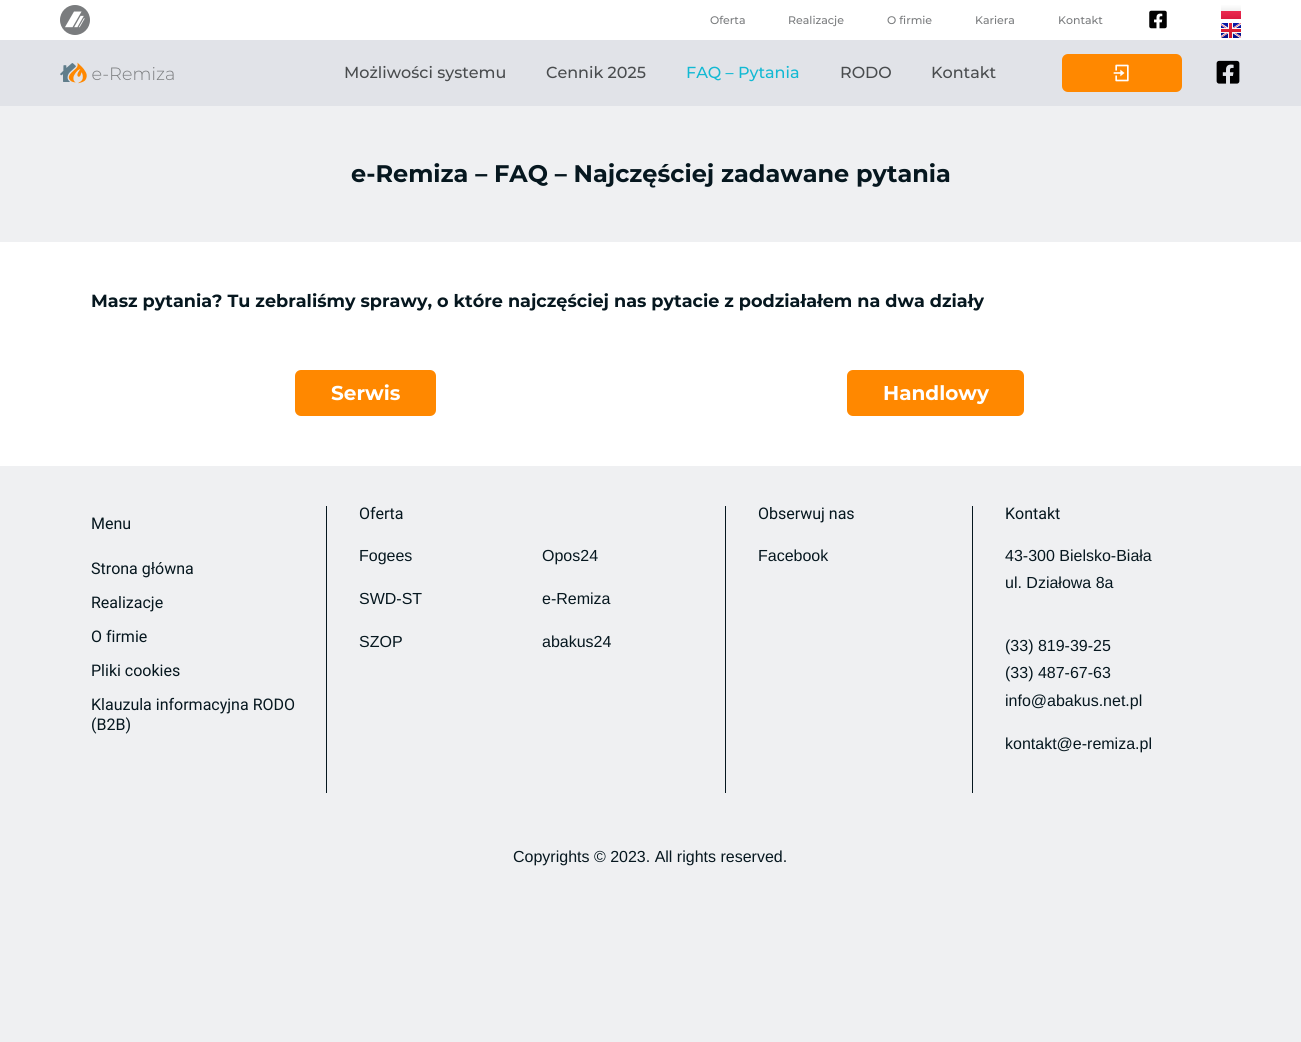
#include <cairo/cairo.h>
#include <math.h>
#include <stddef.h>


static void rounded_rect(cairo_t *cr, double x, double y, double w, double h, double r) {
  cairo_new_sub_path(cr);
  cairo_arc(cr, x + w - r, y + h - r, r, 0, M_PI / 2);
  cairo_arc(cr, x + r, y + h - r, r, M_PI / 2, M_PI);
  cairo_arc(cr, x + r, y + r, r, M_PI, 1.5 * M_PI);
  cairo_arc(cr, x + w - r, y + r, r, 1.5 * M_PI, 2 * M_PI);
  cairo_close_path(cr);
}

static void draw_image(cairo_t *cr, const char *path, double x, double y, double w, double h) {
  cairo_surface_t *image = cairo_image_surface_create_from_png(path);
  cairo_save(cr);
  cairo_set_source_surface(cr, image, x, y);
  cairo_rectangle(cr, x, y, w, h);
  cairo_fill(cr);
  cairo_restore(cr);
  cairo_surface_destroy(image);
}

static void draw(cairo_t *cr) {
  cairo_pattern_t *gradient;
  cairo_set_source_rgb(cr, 239 / 255.0, 240 / 255.0, 242 / 255.0);
  cairo_paint(cr);
  cairo_set_source_rgb(cr, 1, 1, 1);
  cairo_rectangle(cr, 0, 0, 1301, 40);
  cairo_fill(cr);
  draw_image(cr, "images/1.png", 60, 5, 30, 30);
  draw_image(cr, "images/2.png", 1149, 10, 18, 19);
  gradient = cairo_pattern_create_linear(1231, 4, 1231, 11);
  cairo_pattern_add_color_stop_rgba(gradient, 0, 1, 1, 1, 1);
  cairo_pattern_add_color_stop_rgba(gradient, 1, 240 / 255.0, 240 / 255.0, 240 / 255.0, 1);
  cairo_set_source(cr, gradient);
  cairo_pattern_destroy(gradient);
  cairo_rectangle(cr, 1221, 5, 20, 6);
  cairo_fill(cr);
  gradient = cairo_pattern_create_linear(1231, 11, 1231, 19);
  cairo_pattern_add_color_stop_rgba(gradient, 0, 235 / 255.0, 42 / 255.0, 80 / 255.0, 1);
  cairo_pattern_add_color_stop_rgba(gradient, 1, 218 / 255.0, 27 / 255.0, 64 / 255.0, 1);
  cairo_set_source(cr, gradient);
  cairo_pattern_destroy(gradient);
  cairo_rectangle(cr, 1221, 11, 20, 8);
  cairo_fill(cr);
  draw_image(cr, "images/3.png", 1221, 23, 20, 15);
  cairo_set_source_rgb(cr, 225 / 255.0, 227 / 255.0, 232 / 255.0);
  cairo_rectangle(cr, 0, 40, 1301, 66);
  cairo_fill(cr);
  draw_image(cr, "images/4.png", 60, 62, 114, 22);
  cairo_set_source_rgb(cr, 1, 136 / 255.0, 0);
  rounded_rect(cr, 1062, 54, 120, 38, 6);
  cairo_fill(cr);
  draw_image(cr, "images/5.png", 1113, 64, 16, 18);
  draw_image(cr, "images/6.png", 1216, 60, 24, 24);
  cairo_set_source_rgb(cr, 1, 1, 1);
  cairo_rectangle(cr, 0, 242, 1301, 224);
  cairo_fill(cr);
  cairo_set_source_rgb(cr, 1, 136 / 255.0, 0);
  rounded_rect(cr, 295, 370, 141, 46, 6);
  cairo_fill(cr);
  rounded_rect(cr, 847, 370, 177, 46, 6);
  cairo_fill(cr);
  cairo_set_source_rgb(cr, 6 / 255.0, 23 / 255.0, 31 / 255.0);
  cairo_rectangle(cr, 326, 506, 1, 287);
  cairo_fill(cr);
  cairo_rectangle(cr, 725, 506, 1, 287);
  cairo_fill(cr);
  cairo_rectangle(cr, 972, 506, 1, 287);
  cairo_fill(cr);
  cairo_select_font_face(cr, "Montserrat Medium", CAIRO_FONT_SLANT_NORMAL, CAIRO_FONT_WEIGHT_NORMAL);
  cairo_set_font_size(cr, 11);
  cairo_set_source_rgb(cr, 122 / 255.0, 124 / 255.0, 126 / 255.0);
  cairo_move_to(cr, 710, 24);
  cairo_show_text(cr, "Oferta");
  cairo_move_to(cr, 788, 24);
  cairo_show_text(cr, "Realizacje");
  cairo_move_to(cr, 887, 24);
  cairo_show_text(cr, "O firmie");
  cairo_move_to(cr, 975, 24);
  cairo_show_text(cr, "Kariera");
  cairo_move_to(cr, 1058, 24);
  cairo_show_text(cr, "Kontakt");
  cairo_set_font_size(cr, 16);
  cairo_set_source_rgb(cr, 73 / 255.0, 76 / 255.0, 78 / 255.0);
  cairo_move_to(cr, 344, 78);
  cairo_show_text(cr, "Możliwości systemu");
  cairo_move_to(cr, 546, 78);
  cairo_show_text(cr, "Cennik 2025");
  cairo_set_source_rgb(cr, 18 / 255.0, 185 / 255.0, 211 / 255.0);
  cairo_move_to(cr, 686, 78);
  cairo_show_text(cr, "FAQ – Pytania");
  cairo_set_source_rgb(cr, 73 / 255.0, 76 / 255.0, 78 / 255.0);
  cairo_move_to(cr, 840, 78);
  cairo_show_text(cr, "RODO");
  cairo_move_to(cr, 931, 78);
  cairo_show_text(cr, "Kontakt");
  cairo_select_font_face(cr, "Montserrat", CAIRO_FONT_SLANT_NORMAL, CAIRO_FONT_WEIGHT_BOLD);
  cairo_set_font_size(cr, 24);
  cairo_set_source_rgb(cr, 6 / 255.0, 23 / 255.0, 31 / 255.0);
  cairo_move_to(cr, 351, 182);
  cairo_show_text(cr, "e-Remiza – FAQ – Najczęściej zadawane pytania");
  cairo_set_font_size(cr, 17.6);
  cairo_move_to(cr, 91, 307);
  cairo_show_text(cr, "Masz pytania? Tu zebraliśmy sprawy, o które najczęściej nas pytacie z podziałałem na dwa działy");
  cairo_set_font_size(cr, 20);
  cairo_set_source_rgb(cr, 1, 1, 1);
  cairo_move_to(cr, 331, 400);
  cairo_show_text(cr, "Serwis");
  cairo_move_to(cr, 883, 400);
  cairo_show_text(cr, "Handlowy");
  cairo_select_font_face(cr, "Roboto", CAIRO_FONT_SLANT_NORMAL, CAIRO_FONT_WEIGHT_NORMAL);
  cairo_set_font_size(cr, 16);
  cairo_set_source_rgb(cr, 6 / 255.0, 23 / 255.0, 31 / 255.0);
  cairo_move_to(cr, 91, 529);
  cairo_show_text(cr, "Menu");
  cairo_move_to(cr, 91, 574);
  cairo_show_text(cr, "Strona główna");
  cairo_move_to(cr, 91, 608);
  cairo_show_text(cr, "Realizacje");
  cairo_move_to(cr, 91, 642);
  cairo_show_text(cr, "O firmie");
  cairo_move_to(cr, 91, 676);
  cairo_show_text(cr, "Pliki cookies");
  cairo_move_to(cr, 91, 710);
  cairo_show_text(cr, "Klauzula informacyjna RODO");
  cairo_move_to(cr, 91, 730);
  cairo_show_text(cr, "(B2B)");
  cairo_move_to(cr, 359, 519);
  cairo_show_text(cr, "Oferta");
  cairo_select_font_face(cr, "Liberation Sans", CAIRO_FONT_SLANT_NORMAL, CAIRO_FONT_WEIGHT_NORMAL);
  cairo_move_to(cr, 359, 561);
  cairo_show_text(cr, "Fogees");
  cairo_move_to(cr, 359, 604);
  cairo_show_text(cr, "SWD-ST");
  cairo_move_to(cr, 359, 647);
  cairo_show_text(cr, "SZOP");
  cairo_move_to(cr, 542, 561);
  cairo_show_text(cr, "Opos24");
  cairo_move_to(cr, 542, 604);
  cairo_show_text(cr, "e-Remiza");
  cairo_move_to(cr, 542, 647);
  cairo_show_text(cr, "abakus24");
  cairo_select_font_face(cr, "Roboto", CAIRO_FONT_SLANT_NORMAL, CAIRO_FONT_WEIGHT_NORMAL);
  cairo_move_to(cr, 758, 519);
  cairo_show_text(cr, "Obserwuj nas");
  cairo_select_font_face(cr, "Liberation Sans", CAIRO_FONT_SLANT_NORMAL, CAIRO_FONT_WEIGHT_NORMAL);
  cairo_move_to(cr, 758, 561);
  cairo_show_text(cr, "Facebook");
  cairo_select_font_face(cr, "Roboto", CAIRO_FONT_SLANT_NORMAL, CAIRO_FONT_WEIGHT_NORMAL);
  cairo_move_to(cr, 1005, 519);
  cairo_show_text(cr, "Kontakt");
  cairo_select_font_face(cr, "Liberation Sans", CAIRO_FONT_SLANT_NORMAL, CAIRO_FONT_WEIGHT_NORMAL);
  cairo_move_to(cr, 1005, 561);
  cairo_show_text(cr, "43-300 Bielsko-Biała");
  cairo_move_to(cr, 1005, 588);
  cairo_show_text(cr, "ul. Działowa 8a");
  cairo_move_to(cr, 1005, 651);
  cairo_show_text(cr, "(33) 819-39-25");
  cairo_move_to(cr, 1005, 678);
  cairo_show_text(cr, "(33) 487-67-63");
  cairo_move_to(cr, 1005, 706);
  cairo_show_text(cr, "info@abakus.net.pl");
  cairo_move_to(cr, 1005, 749);
  cairo_show_text(cr, "kontakt@e-remiza.pl");
  cairo_move_to(cr, 513, 862);
  cairo_show_text(cr, "Copyrights © 2023. All rights reserved.");
}

int main(void) {
  cairo_surface_t *surface = cairo_image_surface_create(CAIRO_FORMAT_RGB24, 1301, 1042);
  cairo_t *cr = cairo_create(surface);
  cairo_font_options_t *options = cairo_font_options_create();
  cairo_font_options_set_hint_metrics(options, CAIRO_HINT_METRICS_OFF);
  cairo_font_options_set_hint_style(options, CAIRO_HINT_STYLE_NONE);
  cairo_set_font_options(cr, options);
  cairo_set_miter_limit(cr, 4);
  draw(cr);
  cairo_surface_write_to_png(surface, "out.png");
  cairo_font_options_destroy(options);
  cairo_destroy(cr);
  cairo_surface_destroy(surface);
  return 0;
}
